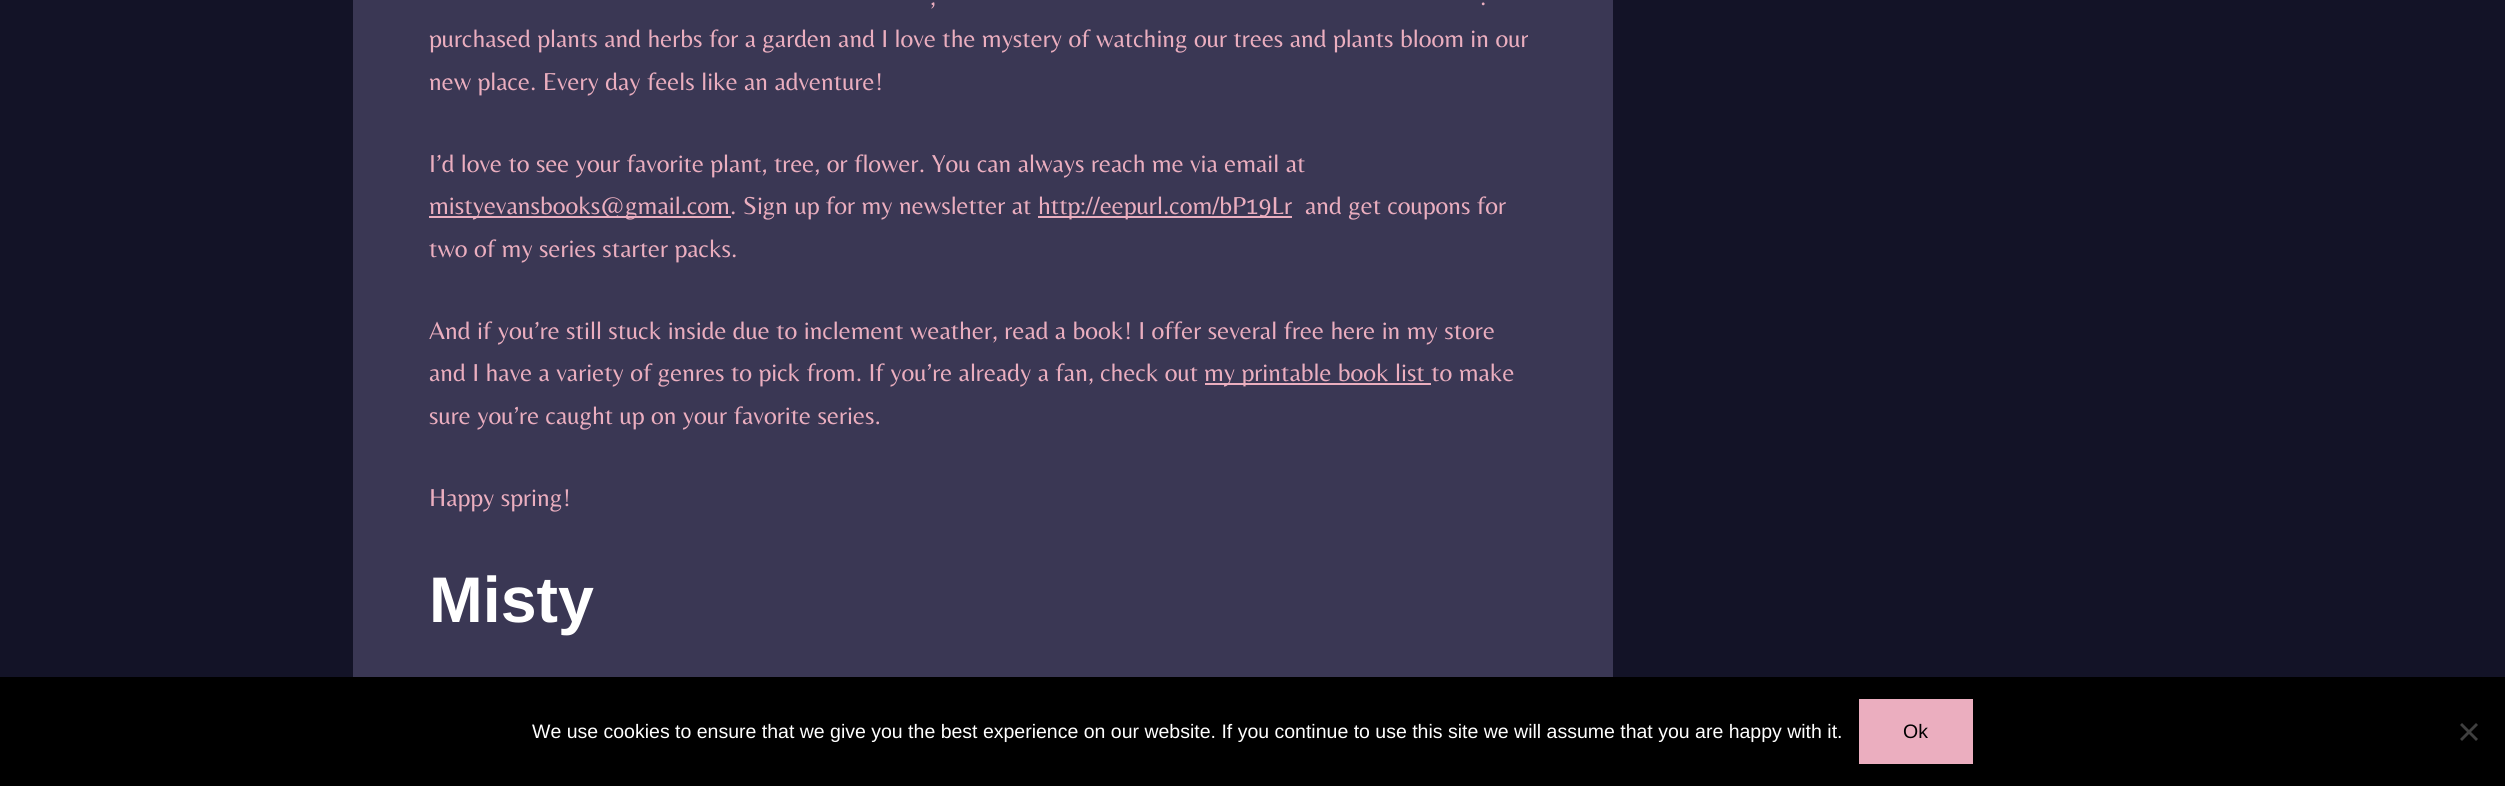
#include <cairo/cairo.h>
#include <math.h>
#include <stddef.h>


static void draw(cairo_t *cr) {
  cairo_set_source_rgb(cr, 19 / 255.0, 19 / 255.0, 39 / 255.0);
  cairo_paint(cr);
  cairo_set_source_rgb(cr, 58 / 255.0, 55 / 255.0, 84 / 255.0);
  cairo_rectangle(cr, 353, 0, 1260, 677);
  cairo_fill(cr);
  cairo_set_source_rgb(cr, 235 / 255.0, 174 / 255.0, 191 / 255.0);
  cairo_rectangle(cr, 429, 216, 302, 2);
  cairo_fill(cr);
  cairo_rectangle(cr, 1038, 216, 254, 2);
  cairo_fill(cr);
  cairo_rectangle(cr, 1205, 383, 226, 2);
  cairo_fill(cr);
  cairo_set_source_rgb(cr, 0, 0, 0);
  cairo_rectangle(cr, 0, 677, 2505, 109);
  cairo_fill(cr);
  cairo_set_source_rgb(cr, 235 / 255.0, 174 / 255.0, 191 / 255.0);
  cairo_rectangle(cr, 1859, 699, 114, 65);
  cairo_fill(cr);
  cairo_set_source_rgb(cr, 64 / 255.0, 64 / 255.0, 64 / 255.0);
  cairo_new_path(cr);
  cairo_move_to(cr, 2476, 723);
  cairo_line_to(cr, 2478, 725);
  cairo_line_to(cr, 2462, 741);
  cairo_line_to(cr, 2460, 739);
  cairo_close_path(cr);
  cairo_fill(cr);
  cairo_new_path(cr);
  cairo_move_to(cr, 2460, 725);
  cairo_line_to(cr, 2462, 723);
  cairo_line_to(cr, 2478, 739);
  cairo_line_to(cr, 2476, 741);
  cairo_close_path(cr);
  cairo_fill(cr);
  cairo_select_font_face(cr, "Belleza", CAIRO_FONT_SLANT_NORMAL, CAIRO_FONT_WEIGHT_NORMAL);
  cairo_set_font_size(cr, 25.5);
  cairo_set_source_rgb(cr, 235 / 255.0, 174 / 255.0, 191 / 255.0);
  cairo_move_to(cr, 930, 5);
  cairo_show_text(cr, ",");
  cairo_move_to(cr, 1480, 5);
  cairo_show_text(cr, ".");
  cairo_move_to(cr, 429, 47);
  cairo_show_text(cr, "purchased plants and herbs for a garden and I love the mystery of watching our trees and plants bloom in our");
  cairo_move_to(cr, 429, 90);
  cairo_show_text(cr, "new place. Every day feels like an adventure!");
  cairo_move_to(cr, 429, 172);
  cairo_show_text(cr, "I’d love to see your favorite plant, tree, or flower. You can always reach me via email at");
  cairo_move_to(cr, 429, 214);
  cairo_show_text(cr, "mistyevansbooks@gmail.com. Sign up for my newsletter at");
  cairo_move_to(cr, 1038, 214);
  cairo_show_text(cr, "http://eepurl.com/bP19Lr");
  cairo_move_to(cr, 1305, 214);
  cairo_show_text(cr, "and get coupons for");
  cairo_move_to(cr, 429, 257);
  cairo_show_text(cr, "two of my series starter packs.");
  cairo_move_to(cr, 429, 339);
  cairo_show_text(cr, "And if you’re still stuck inside due to inclement weather, read a book! I offer several free here in my store");
  cairo_move_to(cr, 429, 381);
  cairo_show_text(cr, "and I have a variety of genres to pick from. If you’re already a fan, check out");
  cairo_move_to(cr, 1204, 381);
  cairo_show_text(cr, "my printable book list to make");
  cairo_move_to(cr, 429, 424);
  cairo_show_text(cr, "sure you’re caught up on your favorite series.");
  cairo_move_to(cr, 429, 506);
  cairo_show_text(cr, "Happy spring!");
  cairo_select_font_face(cr, "Liberation Sans", CAIRO_FONT_SLANT_NORMAL, CAIRO_FONT_WEIGHT_BOLD);
  cairo_set_font_size(cr, 64.5);
  cairo_set_source_rgb(cr, 1, 1, 1);
  cairo_move_to(cr, 429, 622);
  cairo_show_text(cr, "Misty");
  cairo_select_font_face(cr, "Liberation Sans", CAIRO_FONT_SLANT_NORMAL, CAIRO_FONT_WEIGHT_NORMAL);
  cairo_set_font_size(cr, 19.5);
  cairo_move_to(cr, 532, 738);
  cairo_show_text(cr, "We use cookies to ensure that we give you the best experience on our website. If you continue to use this site we will assume that you are happy with it.");
  cairo_set_source_rgb(cr, 0, 0, 0);
  cairo_move_to(cr, 1903, 738);
  cairo_show_text(cr, "Ok");
}

int main(void) {
  cairo_surface_t *surface = cairo_image_surface_create(CAIRO_FORMAT_RGB24, 2505, 786);
  cairo_t *cr = cairo_create(surface);
  cairo_font_options_t *options = cairo_font_options_create();
  cairo_font_options_set_hint_metrics(options, CAIRO_HINT_METRICS_OFF);
  cairo_font_options_set_hint_style(options, CAIRO_HINT_STYLE_NONE);
  cairo_set_font_options(cr, options);
  cairo_set_miter_limit(cr, 4);
  draw(cr);
  cairo_surface_write_to_png(surface, "out.png");
  cairo_font_options_destroy(options);
  cairo_destroy(cr);
  cairo_surface_destroy(surface);
  return 0;
}
